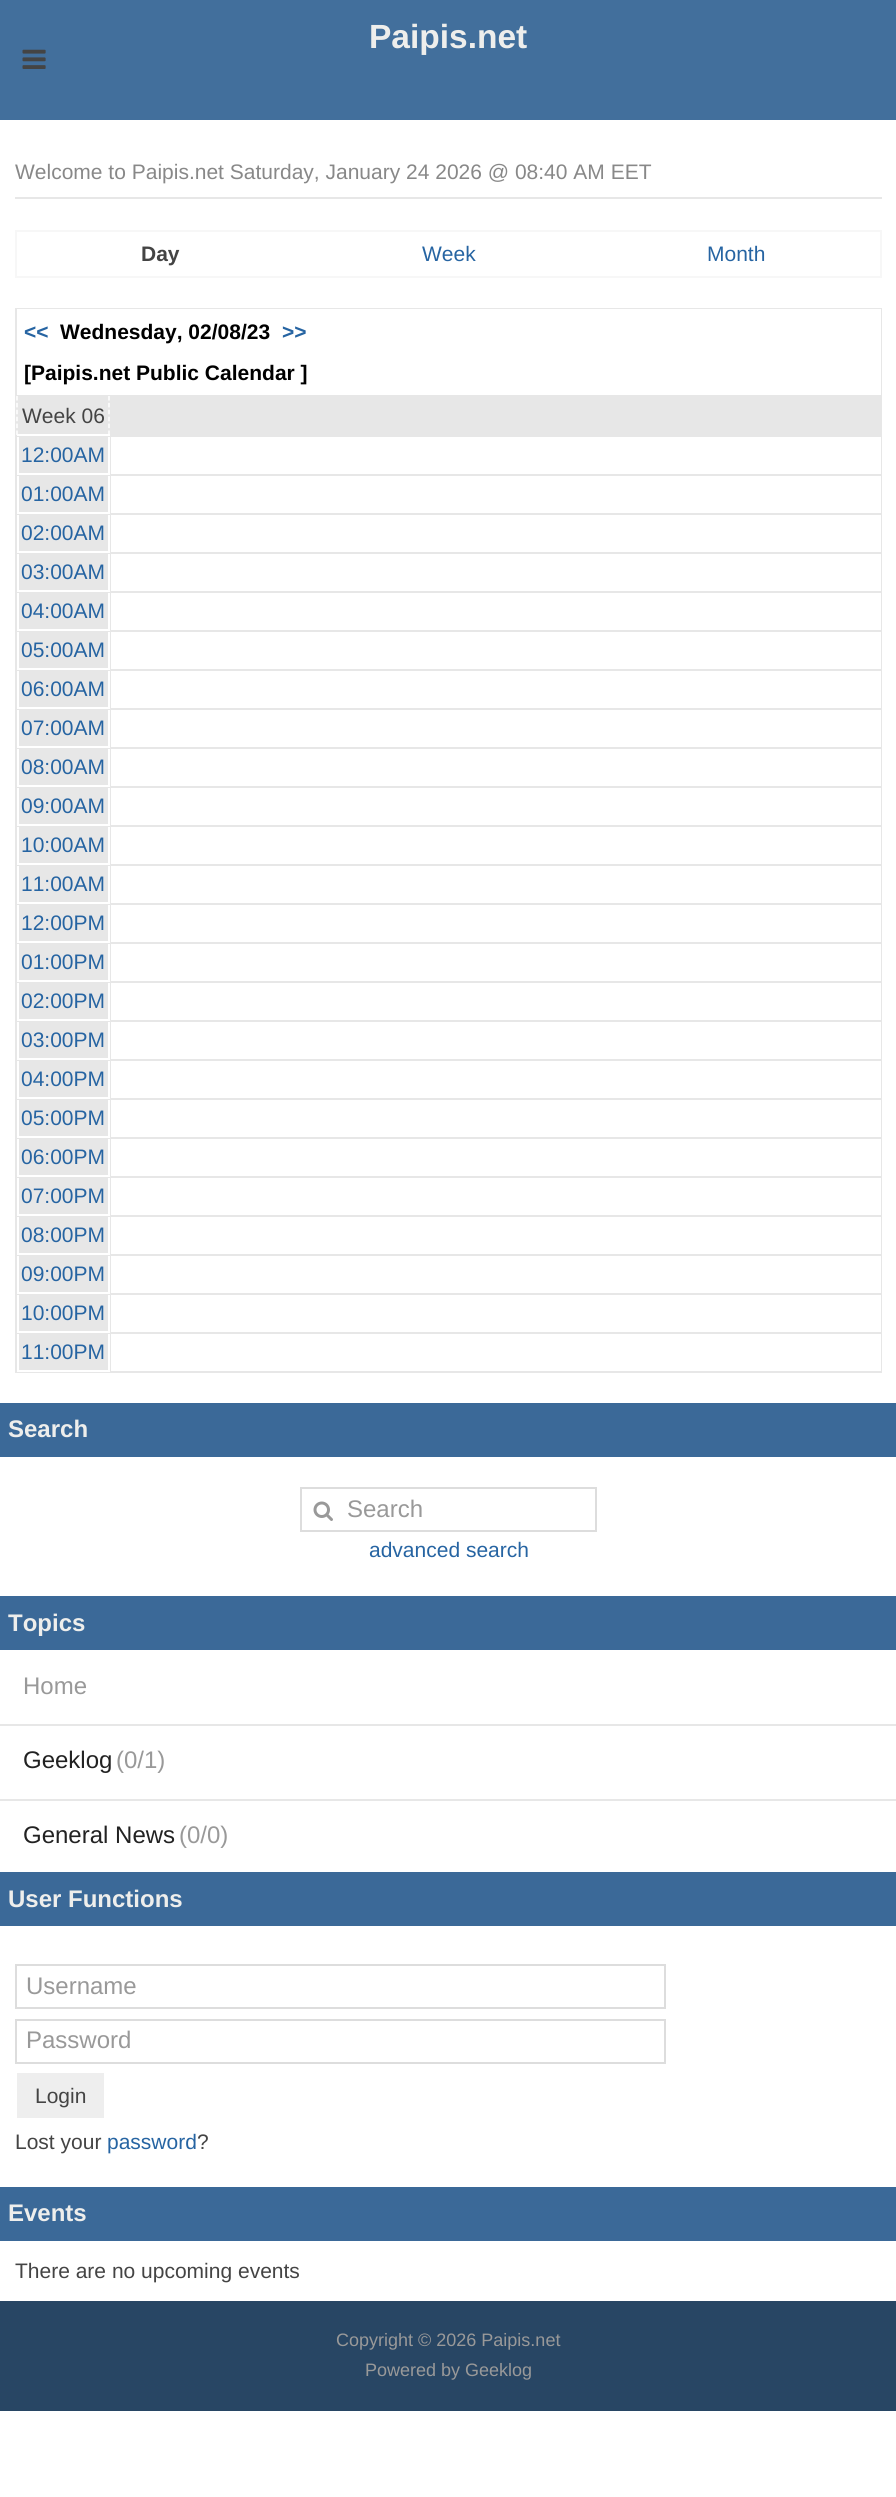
#include <cairo/cairo.h>
#include <math.h>
#include <stddef.h>


static void draw_image(cairo_t *cr, const char *path, double x, double y, double w, double h) {
  cairo_surface_t *image = cairo_image_surface_create_from_png(path);
  cairo_save(cr);
  cairo_set_source_surface(cr, image, x, y);
  cairo_rectangle(cr, x, y, w, h);
  cairo_fill(cr);
  cairo_restore(cr);
  cairo_surface_destroy(image);
}

static void draw(cairo_t *cr) {
  cairo_set_source_rgb(cr, 1, 1, 1);
  cairo_paint(cr);
  cairo_set_source_rgb(cr, 66 / 255.0, 111 / 255.0, 156 / 255.0);
  cairo_rectangle(cr, 0, 0, 896, 120);
  cairo_fill(cr);
  draw_image(cr, "images/1.png", 22, 49, 24, 20);
  cairo_set_source_rgb(cr, 231 / 255.0, 231 / 255.0, 231 / 255.0);
  cairo_rectangle(cr, 15, 197, 867, 2);
  cairo_fill(cr);
  cairo_rectangle(cr, 16, 231, 865, 46);
  cairo_set_source_rgb(cr, 247 / 255.0, 247 / 255.0, 247 / 255.0);
  cairo_stroke(cr);
  cairo_set_source_rgb(cr, 231 / 255.0, 231 / 255.0, 231 / 255.0);
  cairo_rectangle(cr, 15, 308, 867, 1065);
  cairo_fill(cr);
  cairo_set_source_rgb(cr, 1, 1, 1);
  cairo_rectangle(cr, 17, 309, 864, 86);
  cairo_fill(cr);
  cairo_new_path(cr);
  cairo_move_to(cr, 109, 396);
  cairo_line_to(cr, 109, 435);
  cairo_set_line_width(cr, 1.5);
  cairo_set_dash(cr, (double[]){4.5, 2.4}, 2, 0);
  cairo_stroke(cr);
  cairo_rectangle(cr, 17, 434, 93, 2);
  cairo_fill(cr);
  cairo_new_path(cr);
  cairo_move_to(cr, 17, 396);
  cairo_line_to(cr, 17, 435);
  cairo_stroke(cr);
  cairo_rectangle(cr, 108, 437, 2, 37);
  cairo_fill(cr);
  cairo_rectangle(cr, 17, 473, 93, 2);
  cairo_fill(cr);
  cairo_rectangle(cr, 17, 437, 2, 37);
  cairo_fill(cr);
  cairo_rectangle(cr, 111, 437, 770, 37);
  cairo_fill(cr);
  cairo_rectangle(cr, 108, 476, 2, 37);
  cairo_fill(cr);
  cairo_rectangle(cr, 17, 512, 93, 2);
  cairo_fill(cr);
  cairo_rectangle(cr, 17, 476, 2, 37);
  cairo_fill(cr);
  cairo_rectangle(cr, 111, 476, 770, 37);
  cairo_fill(cr);
  cairo_rectangle(cr, 108, 515, 2, 37);
  cairo_fill(cr);
  cairo_rectangle(cr, 17, 551, 93, 2);
  cairo_fill(cr);
  cairo_rectangle(cr, 17, 515, 2, 37);
  cairo_fill(cr);
  cairo_rectangle(cr, 111, 515, 770, 37);
  cairo_fill(cr);
  cairo_rectangle(cr, 108, 554, 2, 37);
  cairo_fill(cr);
  cairo_rectangle(cr, 17, 590, 93, 2);
  cairo_fill(cr);
  cairo_rectangle(cr, 17, 554, 2, 37);
  cairo_fill(cr);
  cairo_rectangle(cr, 111, 554, 770, 37);
  cairo_fill(cr);
  cairo_rectangle(cr, 108, 593, 2, 37);
  cairo_fill(cr);
  cairo_rectangle(cr, 17, 629, 93, 2);
  cairo_fill(cr);
  cairo_rectangle(cr, 17, 593, 2, 37);
  cairo_fill(cr);
  cairo_rectangle(cr, 111, 593, 770, 37);
  cairo_fill(cr);
  cairo_rectangle(cr, 108, 632, 2, 37);
  cairo_fill(cr);
  cairo_rectangle(cr, 17, 668, 93, 2);
  cairo_fill(cr);
  cairo_rectangle(cr, 17, 632, 2, 37);
  cairo_fill(cr);
  cairo_rectangle(cr, 111, 632, 770, 37);
  cairo_fill(cr);
  cairo_rectangle(cr, 108, 671, 2, 37);
  cairo_fill(cr);
  cairo_rectangle(cr, 17, 707, 93, 2);
  cairo_fill(cr);
  cairo_rectangle(cr, 17, 671, 2, 37);
  cairo_fill(cr);
  cairo_rectangle(cr, 111, 671, 770, 37);
  cairo_fill(cr);
  cairo_rectangle(cr, 108, 710, 2, 37);
  cairo_fill(cr);
  cairo_rectangle(cr, 17, 746, 93, 2);
  cairo_fill(cr);
  cairo_rectangle(cr, 17, 710, 2, 37);
  cairo_fill(cr);
  cairo_rectangle(cr, 111, 710, 770, 37);
  cairo_fill(cr);
  cairo_rectangle(cr, 108, 749, 2, 37);
  cairo_fill(cr);
  cairo_rectangle(cr, 17, 785, 93, 2);
  cairo_fill(cr);
  cairo_rectangle(cr, 17, 749, 2, 37);
  cairo_fill(cr);
  cairo_rectangle(cr, 111, 749, 770, 37);
  cairo_fill(cr);
  cairo_rectangle(cr, 108, 788, 2, 37);
  cairo_fill(cr);
  cairo_rectangle(cr, 17, 824, 93, 2);
  cairo_fill(cr);
  cairo_rectangle(cr, 17, 788, 2, 37);
  cairo_fill(cr);
  cairo_rectangle(cr, 111, 788, 770, 37);
  cairo_fill(cr);
  cairo_rectangle(cr, 108, 827, 2, 37);
  cairo_fill(cr);
  cairo_rectangle(cr, 17, 863, 93, 2);
  cairo_fill(cr);
  cairo_rectangle(cr, 17, 827, 2, 37);
  cairo_fill(cr);
  cairo_rectangle(cr, 111, 827, 770, 37);
  cairo_fill(cr);
  cairo_rectangle(cr, 108, 866, 2, 37);
  cairo_fill(cr);
  cairo_rectangle(cr, 17, 902, 93, 2);
  cairo_fill(cr);
  cairo_rectangle(cr, 17, 866, 2, 37);
  cairo_fill(cr);
  cairo_rectangle(cr, 111, 866, 770, 37);
  cairo_fill(cr);
  cairo_rectangle(cr, 108, 905, 2, 37);
  cairo_fill(cr);
  cairo_rectangle(cr, 17, 941, 93, 2);
  cairo_fill(cr);
  cairo_rectangle(cr, 17, 905, 2, 37);
  cairo_fill(cr);
  cairo_rectangle(cr, 111, 905, 770, 37);
  cairo_fill(cr);
  cairo_rectangle(cr, 108, 944, 2, 37);
  cairo_fill(cr);
  cairo_rectangle(cr, 17, 980, 93, 2);
  cairo_fill(cr);
  cairo_rectangle(cr, 17, 944, 2, 37);
  cairo_fill(cr);
  cairo_rectangle(cr, 111, 944, 770, 37);
  cairo_fill(cr);
  cairo_rectangle(cr, 108, 983, 2, 37);
  cairo_fill(cr);
  cairo_rectangle(cr, 17, 1019, 93, 2);
  cairo_fill(cr);
  cairo_rectangle(cr, 17, 983, 2, 37);
  cairo_fill(cr);
  cairo_rectangle(cr, 111, 983, 770, 37);
  cairo_fill(cr);
  cairo_rectangle(cr, 108, 1022, 2, 37);
  cairo_fill(cr);
  cairo_rectangle(cr, 17, 1058, 93, 2);
  cairo_fill(cr);
  cairo_rectangle(cr, 17, 1022, 2, 37);
  cairo_fill(cr);
  cairo_rectangle(cr, 111, 1022, 770, 37);
  cairo_fill(cr);
  cairo_rectangle(cr, 108, 1061, 2, 37);
  cairo_fill(cr);
  cairo_rectangle(cr, 17, 1097, 93, 2);
  cairo_fill(cr);
  cairo_rectangle(cr, 17, 1061, 2, 37);
  cairo_fill(cr);
  cairo_rectangle(cr, 111, 1061, 770, 37);
  cairo_fill(cr);
  cairo_rectangle(cr, 108, 1100, 2, 37);
  cairo_fill(cr);
  cairo_rectangle(cr, 17, 1136, 93, 2);
  cairo_fill(cr);
  cairo_rectangle(cr, 17, 1100, 2, 37);
  cairo_fill(cr);
  cairo_rectangle(cr, 111, 1100, 770, 37);
  cairo_fill(cr);
  cairo_rectangle(cr, 108, 1139, 2, 37);
  cairo_fill(cr);
  cairo_rectangle(cr, 17, 1175, 93, 2);
  cairo_fill(cr);
  cairo_rectangle(cr, 17, 1139, 2, 37);
  cairo_fill(cr);
  cairo_rectangle(cr, 111, 1139, 770, 37);
  cairo_fill(cr);
  cairo_rectangle(cr, 108, 1178, 2, 37);
  cairo_fill(cr);
  cairo_rectangle(cr, 17, 1214, 93, 2);
  cairo_fill(cr);
  cairo_rectangle(cr, 17, 1178, 2, 37);
  cairo_fill(cr);
  cairo_rectangle(cr, 111, 1178, 770, 37);
  cairo_fill(cr);
  cairo_rectangle(cr, 108, 1217, 2, 37);
  cairo_fill(cr);
  cairo_rectangle(cr, 17, 1253, 93, 2);
  cairo_fill(cr);
  cairo_rectangle(cr, 17, 1217, 2, 37);
  cairo_fill(cr);
  cairo_rectangle(cr, 111, 1217, 770, 37);
  cairo_fill(cr);
  cairo_rectangle(cr, 108, 1256, 2, 37);
  cairo_fill(cr);
  cairo_rectangle(cr, 17, 1292, 93, 2);
  cairo_fill(cr);
  cairo_rectangle(cr, 17, 1256, 2, 37);
  cairo_fill(cr);
  cairo_rectangle(cr, 111, 1256, 770, 37);
  cairo_fill(cr);
  cairo_rectangle(cr, 108, 1295, 2, 37);
  cairo_fill(cr);
  cairo_rectangle(cr, 17, 1331, 93, 2);
  cairo_fill(cr);
  cairo_rectangle(cr, 17, 1295, 2, 37);
  cairo_fill(cr);
  cairo_rectangle(cr, 111, 1295, 770, 37);
  cairo_fill(cr);
  cairo_rectangle(cr, 108, 1334, 2, 37);
  cairo_fill(cr);
  cairo_rectangle(cr, 17, 1370, 93, 2);
  cairo_fill(cr);
  cairo_rectangle(cr, 17, 1334, 2, 37);
  cairo_fill(cr);
  cairo_rectangle(cr, 111, 1334, 770, 37);
  cairo_fill(cr);
  cairo_set_source_rgb(cr, 59 / 255.0, 105 / 255.0, 152 / 255.0);
  cairo_rectangle(cr, 0, 1403, 896, 54);
  cairo_fill(cr);
  cairo_rectangle(cr, 301, 1488, 295, 43);
  cairo_set_source_rgb(cr, 221 / 255.0, 221 / 255.0, 221 / 255.0);
  cairo_set_line_width(cr, 2);
  cairo_set_dash(cr, NULL, 0, 0);
  cairo_stroke(cr);
  draw_image(cr, "images/2.png", 313, 1501, 20, 20);
  cairo_set_source_rgb(cr, 59 / 255.0, 105 / 255.0, 152 / 255.0);
  cairo_rectangle(cr, 0, 1596, 896, 54);
  cairo_fill(cr);
  cairo_set_source_rgb(cr, 231 / 255.0, 231 / 255.0, 231 / 255.0);
  cairo_rectangle(cr, 0, 1724, 896, 2);
  cairo_fill(cr);
  cairo_rectangle(cr, 0, 1799, 896, 2);
  cairo_fill(cr);
  cairo_set_source_rgb(cr, 59 / 255.0, 105 / 255.0, 152 / 255.0);
  cairo_rectangle(cr, 0, 1872, 896, 54);
  cairo_fill(cr);
  cairo_rectangle(cr, 16, 1965, 649, 43);
  cairo_set_source_rgb(cr, 221 / 255.0, 221 / 255.0, 221 / 255.0);
  cairo_stroke(cr);
  cairo_rectangle(cr, 16, 2020, 649, 43);
  cairo_stroke(cr);
  cairo_set_source_rgb(cr, 238 / 255.0, 238 / 255.0, 238 / 255.0);
  cairo_rectangle(cr, 17, 2073, 87, 45);
  cairo_fill(cr);
  cairo_set_source_rgb(cr, 59 / 255.0, 105 / 255.0, 152 / 255.0);
  cairo_rectangle(cr, 0, 2187, 896, 54);
  cairo_fill(cr);
  cairo_set_source_rgb(cr, 40 / 255.0, 70 / 255.0, 100 / 255.0);
  cairo_rectangle(cr, 0, 2301, 896, 110);
  cairo_fill(cr);
  cairo_select_font_face(cr, "Liberation Sans", CAIRO_FONT_SLANT_NORMAL, CAIRO_FONT_WEIGHT_BOLD);
  cairo_set_font_size(cr, 33.5);
  cairo_set_source_rgb(cr, 238 / 255.0, 238 / 255.0, 236 / 255.0);
  cairo_move_to(cr, 369, 48);
  cairo_show_text(cr, "Paipis.net");
  cairo_select_font_face(cr, "Liberation Sans", CAIRO_FONT_SLANT_NORMAL, CAIRO_FONT_WEIGHT_NORMAL);
  cairo_set_font_size(cr, 21);
  cairo_set_source_rgb(cr, 136 / 255.0, 136 / 255.0, 136 / 255.0);
  cairo_move_to(cr, 15, 179);
  cairo_show_text(cr, "Welcome to Paipis.net Saturday, January 24 2026 @ 08:40 AM EET");
  cairo_select_font_face(cr, "Liberation Sans", CAIRO_FONT_SLANT_NORMAL, CAIRO_FONT_WEIGHT_BOLD);
  cairo_set_source_rgb(cr, 68 / 255.0, 68 / 255.0, 68 / 255.0);
  cairo_move_to(cr, 141, 261);
  cairo_show_text(cr, "Day");
  cairo_select_font_face(cr, "Liberation Sans", CAIRO_FONT_SLANT_NORMAL, CAIRO_FONT_WEIGHT_NORMAL);
  cairo_set_source_rgb(cr, 38 / 255.0, 100 / 255.0, 162 / 255.0);
  cairo_move_to(cr, 422, 261);
  cairo_show_text(cr, "Week");
  cairo_move_to(cr, 707, 261);
  cairo_show_text(cr, "Month");
  cairo_select_font_face(cr, "Liberation Sans", CAIRO_FONT_SLANT_NORMAL, CAIRO_FONT_WEIGHT_BOLD);
  cairo_move_to(cr, 24, 339);
  cairo_show_text(cr, "<<");
  cairo_set_source_rgb(cr, 0, 0, 0);
  cairo_move_to(cr, 60, 339);
  cairo_show_text(cr, "Wednesday, 02/08/23");
  cairo_set_source_rgb(cr, 38 / 255.0, 100 / 255.0, 162 / 255.0);
  cairo_move_to(cr, 282, 339);
  cairo_show_text(cr, ">>");
  cairo_set_source_rgb(cr, 0, 0, 0);
  cairo_move_to(cr, 24, 380);
  cairo_show_text(cr, "[Paipis.net Public Calendar ]");
  cairo_select_font_face(cr, "Liberation Sans", CAIRO_FONT_SLANT_NORMAL, CAIRO_FONT_WEIGHT_NORMAL);
  cairo_set_source_rgb(cr, 68 / 255.0, 68 / 255.0, 68 / 255.0);
  cairo_move_to(cr, 22, 423);
  cairo_show_text(cr, "Week 06");
  cairo_set_source_rgb(cr, 38 / 255.0, 100 / 255.0, 162 / 255.0);
  cairo_move_to(cr, 21, 462);
  cairo_show_text(cr, "12:00AM");
  cairo_move_to(cr, 21, 501);
  cairo_show_text(cr, "01:00AM");
  cairo_move_to(cr, 21, 540);
  cairo_show_text(cr, "02:00AM");
  cairo_move_to(cr, 21, 579);
  cairo_show_text(cr, "03:00AM");
  cairo_move_to(cr, 21, 618);
  cairo_show_text(cr, "04:00AM");
  cairo_move_to(cr, 21, 657);
  cairo_show_text(cr, "05:00AM");
  cairo_move_to(cr, 21, 696);
  cairo_show_text(cr, "06:00AM");
  cairo_move_to(cr, 21, 735);
  cairo_show_text(cr, "07:00AM");
  cairo_move_to(cr, 21, 774);
  cairo_show_text(cr, "08:00AM");
  cairo_move_to(cr, 21, 813);
  cairo_show_text(cr, "09:00AM");
  cairo_move_to(cr, 21, 852);
  cairo_show_text(cr, "10:00AM");
  cairo_move_to(cr, 21, 891);
  cairo_show_text(cr, "11:00AM");
  cairo_move_to(cr, 21, 930);
  cairo_show_text(cr, "12:00PM");
  cairo_move_to(cr, 21, 969);
  cairo_show_text(cr, "01:00PM");
  cairo_move_to(cr, 21, 1008);
  cairo_show_text(cr, "02:00PM");
  cairo_move_to(cr, 21, 1047);
  cairo_show_text(cr, "03:00PM");
  cairo_move_to(cr, 21, 1086);
  cairo_show_text(cr, "04:00PM");
  cairo_move_to(cr, 21, 1125);
  cairo_show_text(cr, "05:00PM");
  cairo_move_to(cr, 21, 1164);
  cairo_show_text(cr, "06:00PM");
  cairo_move_to(cr, 21, 1203);
  cairo_show_text(cr, "07:00PM");
  cairo_move_to(cr, 21, 1242);
  cairo_show_text(cr, "08:00PM");
  cairo_move_to(cr, 21, 1281);
  cairo_show_text(cr, "09:00PM");
  cairo_move_to(cr, 21, 1320);
  cairo_show_text(cr, "10:00PM");
  cairo_move_to(cr, 21, 1359);
  cairo_show_text(cr, "11:00PM");
  cairo_select_font_face(cr, "Liberation Sans", CAIRO_FONT_SLANT_NORMAL, CAIRO_FONT_WEIGHT_BOLD);
  cairo_set_font_size(cr, 24);
  cairo_set_source_rgb(cr, 238 / 255.0, 238 / 255.0, 236 / 255.0);
  cairo_move_to(cr, 8, 1437);
  cairo_show_text(cr, "Search");
  cairo_select_font_face(cr, "Liberation Sans", CAIRO_FONT_SLANT_NORMAL, CAIRO_FONT_WEIGHT_NORMAL);
  cairo_set_source_rgb(cr, 153 / 255.0, 153 / 255.0, 153 / 255.0);
  cairo_move_to(cr, 347, 1517);
  cairo_show_text(cr, "Search");
  cairo_set_font_size(cr, 21);
  cairo_set_source_rgb(cr, 38 / 255.0, 100 / 255.0, 162 / 255.0);
  cairo_move_to(cr, 369, 1557);
  cairo_show_text(cr, "advanced search");
  cairo_select_font_face(cr, "Liberation Sans", CAIRO_FONT_SLANT_NORMAL, CAIRO_FONT_WEIGHT_BOLD);
  cairo_set_font_size(cr, 24);
  cairo_set_source_rgb(cr, 238 / 255.0, 238 / 255.0, 236 / 255.0);
  cairo_move_to(cr, 8, 1631);
  cairo_show_text(cr, "Topics");
  cairo_select_font_face(cr, "Liberation Sans", CAIRO_FONT_SLANT_NORMAL, CAIRO_FONT_WEIGHT_NORMAL);
  cairo_set_source_rgb(cr, 153 / 255.0, 153 / 255.0, 153 / 255.0);
  cairo_move_to(cr, 23, 1694);
  cairo_show_text(cr, "Home");
  cairo_set_source_rgb(cr, 34 / 255.0, 34 / 255.0, 34 / 255.0);
  cairo_move_to(cr, 23, 1768);
  cairo_show_text(cr, "Geeklog");
  cairo_set_source_rgb(cr, 153 / 255.0, 153 / 255.0, 153 / 255.0);
  cairo_move_to(cr, 116, 1768);
  cairo_show_text(cr, "(0/1)");
  cairo_set_source_rgb(cr, 34 / 255.0, 34 / 255.0, 34 / 255.0);
  cairo_move_to(cr, 23, 1843);
  cairo_show_text(cr, "General News");
  cairo_set_source_rgb(cr, 153 / 255.0, 153 / 255.0, 153 / 255.0);
  cairo_move_to(cr, 179, 1843);
  cairo_show_text(cr, "(0/0)");
  cairo_select_font_face(cr, "Liberation Sans", CAIRO_FONT_SLANT_NORMAL, CAIRO_FONT_WEIGHT_BOLD);
  cairo_set_source_rgb(cr, 238 / 255.0, 238 / 255.0, 236 / 255.0);
  cairo_move_to(cr, 8, 1907);
  cairo_show_text(cr, "User Functions");
  cairo_select_font_face(cr, "Liberation Sans", CAIRO_FONT_SLANT_NORMAL, CAIRO_FONT_WEIGHT_NORMAL);
  cairo_set_source_rgb(cr, 153 / 255.0, 153 / 255.0, 153 / 255.0);
  cairo_move_to(cr, 26, 1994);
  cairo_show_text(cr, "Username");
  cairo_move_to(cr, 26, 2048);
  cairo_show_text(cr, "Password");
  cairo_set_font_size(cr, 21);
  cairo_set_source_rgb(cr, 68 / 255.0, 68 / 255.0, 68 / 255.0);
  cairo_move_to(cr, 35, 2103);
  cairo_show_text(cr, "Login");
  cairo_move_to(cr, 15, 2149);
  cairo_show_text(cr, "Lost your");
  cairo_set_source_rgb(cr, 38 / 255.0, 100 / 255.0, 162 / 255.0);
  cairo_move_to(cr, 107, 2149);
  cairo_show_text(cr, "password");
  cairo_set_source_rgb(cr, 68 / 255.0, 68 / 255.0, 68 / 255.0);
  cairo_move_to(cr, 197, 2149);
  cairo_show_text(cr, "?");
  cairo_select_font_face(cr, "Liberation Sans", CAIRO_FONT_SLANT_NORMAL, CAIRO_FONT_WEIGHT_BOLD);
  cairo_set_font_size(cr, 24);
  cairo_set_source_rgb(cr, 238 / 255.0, 238 / 255.0, 236 / 255.0);
  cairo_move_to(cr, 8, 2221);
  cairo_show_text(cr, "Events");
  cairo_select_font_face(cr, "Liberation Sans", CAIRO_FONT_SLANT_NORMAL, CAIRO_FONT_WEIGHT_NORMAL);
  cairo_set_font_size(cr, 21);
  cairo_set_source_rgb(cr, 68 / 255.0, 68 / 255.0, 68 / 255.0);
  cairo_move_to(cr, 15, 2278);
  cairo_show_text(cr, "There are no upcoming events");
  cairo_set_font_size(cr, 18);
  cairo_set_source_rgb(cr, 153 / 255.0, 153 / 255.0, 153 / 255.0);
  cairo_move_to(cr, 336, 2346);
  cairo_show_text(cr, "Copyright © 2026 Paipis.net");
  cairo_move_to(cr, 365, 2376);
  cairo_show_text(cr, "Powered by Geeklog");
}

int main(void) {
  cairo_surface_t *surface = cairo_image_surface_create(CAIRO_FORMAT_RGB24, 896, 2497);
  cairo_t *cr = cairo_create(surface);
  cairo_font_options_t *options = cairo_font_options_create();
  cairo_font_options_set_hint_metrics(options, CAIRO_HINT_METRICS_OFF);
  cairo_font_options_set_hint_style(options, CAIRO_HINT_STYLE_NONE);
  cairo_set_font_options(cr, options);
  cairo_set_miter_limit(cr, 4);
  draw(cr);
  cairo_surface_write_to_png(surface, "out.png");
  cairo_font_options_destroy(options);
  cairo_destroy(cr);
  cairo_surface_destroy(surface);
  return 0;
}
